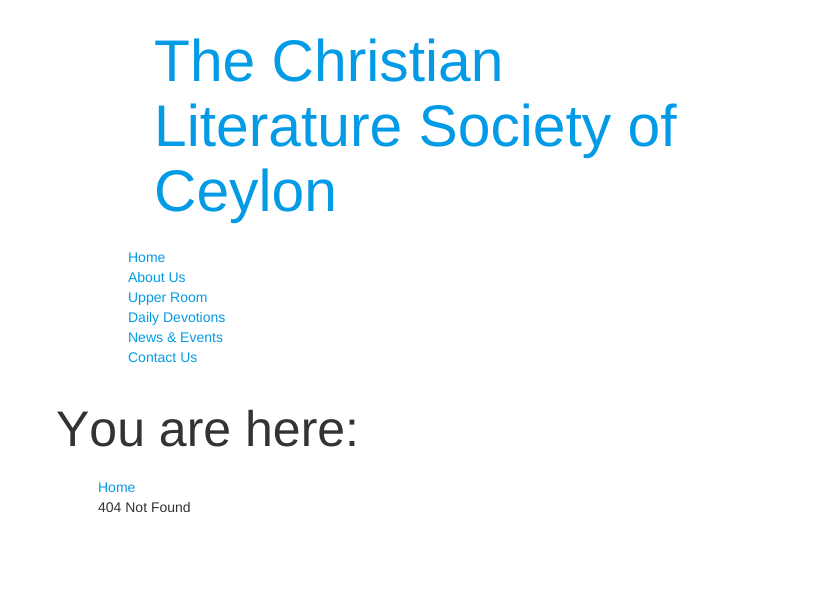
#include <cairo/cairo.h>
#include <math.h>
#include <stddef.h>


static void draw(cairo_t *cr) {
  cairo_set_source_rgb(cr, 1, 1, 1);
  cairo_paint(cr);
  cairo_select_font_face(cr, "Liberation Sans", CAIRO_FONT_SLANT_NORMAL, CAIRO_FONT_WEIGHT_NORMAL);
  cairo_set_font_size(cr, 58.75);
  cairo_set_source_rgb(cr, 3 / 255.0, 155 / 255.0, 229 / 255.0);
  cairo_move_to(cr, 154, 81);
  cairo_show_text(cr, "The Christian");
  cairo_move_to(cr, 154, 146);
  cairo_show_text(cr, "Literature Society of");
  cairo_move_to(cr, 154, 211);
  cairo_show_text(cr, "Ceylon");
  cairo_set_font_size(cr, 14);
  cairo_move_to(cr, 128, 262);
  cairo_show_text(cr, "Home");
  cairo_move_to(cr, 128, 282);
  cairo_show_text(cr, "About Us");
  cairo_move_to(cr, 128, 302);
  cairo_show_text(cr, "Upper Room");
  cairo_move_to(cr, 128, 322);
  cairo_show_text(cr, "Daily Devotions");
  cairo_move_to(cr, 128, 342);
  cairo_show_text(cr, "News & Events");
  cairo_move_to(cr, 128, 362);
  cairo_show_text(cr, "Contact Us");
  cairo_set_font_size(cr, 50);
  cairo_set_source_rgb(cr, 51 / 255.0, 51 / 255.0, 51 / 255.0);
  cairo_move_to(cr, 56, 446);
  cairo_show_text(cr, "You are here:");
  cairo_set_font_size(cr, 14);
  cairo_set_source_rgb(cr, 3 / 255.0, 155 / 255.0, 229 / 255.0);
  cairo_move_to(cr, 98, 492);
  cairo_show_text(cr, "Home");
  cairo_set_source_rgb(cr, 51 / 255.0, 51 / 255.0, 51 / 255.0);
  cairo_move_to(cr, 98, 512);
  cairo_show_text(cr, "404 Not Found");
}

int main(void) {
  cairo_surface_t *surface = cairo_image_surface_create(CAIRO_FORMAT_RGB24, 832, 593);
  cairo_t *cr = cairo_create(surface);
  cairo_font_options_t *options = cairo_font_options_create();
  cairo_font_options_set_hint_metrics(options, CAIRO_HINT_METRICS_OFF);
  cairo_font_options_set_hint_style(options, CAIRO_HINT_STYLE_NONE);
  cairo_set_font_options(cr, options);
  cairo_set_miter_limit(cr, 4);
  draw(cr);
  cairo_surface_write_to_png(surface, "out.png");
  cairo_font_options_destroy(options);
  cairo_destroy(cr);
  cairo_surface_destroy(surface);
  return 0;
}
